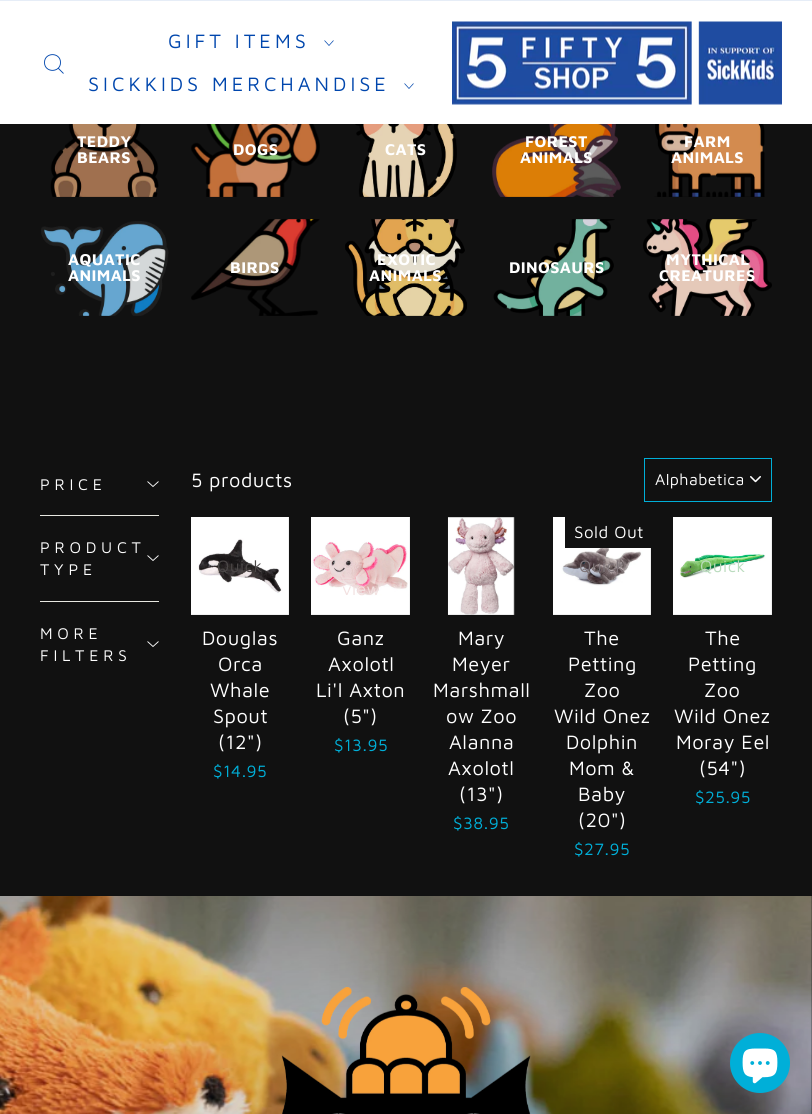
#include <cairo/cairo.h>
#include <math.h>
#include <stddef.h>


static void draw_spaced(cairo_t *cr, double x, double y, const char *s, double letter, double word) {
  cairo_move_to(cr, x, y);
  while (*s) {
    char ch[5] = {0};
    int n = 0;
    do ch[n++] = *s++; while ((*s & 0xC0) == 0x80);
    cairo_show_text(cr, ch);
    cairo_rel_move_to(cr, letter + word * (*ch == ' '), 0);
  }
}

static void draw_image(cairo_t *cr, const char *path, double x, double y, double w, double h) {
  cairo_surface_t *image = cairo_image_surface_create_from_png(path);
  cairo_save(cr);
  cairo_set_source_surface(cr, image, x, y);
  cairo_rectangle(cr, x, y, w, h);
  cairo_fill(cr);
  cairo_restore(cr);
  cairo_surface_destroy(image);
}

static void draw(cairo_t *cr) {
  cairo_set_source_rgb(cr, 17 / 255.0, 17 / 255.0, 17 / 255.0);
  cairo_paint(cr);
  cairo_set_source_rgb(cr, 1, 1, 1);
  cairo_rectangle(cr, 0, 1, 812, 123);
  cairo_fill(cr);
  cairo_set_source_rgb(cr, 230 / 255.0, 237 / 255.0, 247 / 255.0);
  cairo_rectangle(cr, 0, 0, 812, 1);
  cairo_fill(cr);
  cairo_new_path(cr);
  cairo_move_to(cr, 60.5, 62.5);
  cairo_curve_to(cr, 60.5, 73, 44.5, 73, 44.5, 62.5);
  cairo_curve_to(cr, 44.5, 52, 60.5, 52, 60.5, 62.5);
  cairo_close_path(cr);
  cairo_move_to(cr, 63.5, 73.5);
  cairo_line_to(cr, 58.5, 68.5);
  cairo_set_source_rgb(cr, 0, 70 / 255.0, 173 / 255.0);
  cairo_set_line_width(cr, 0.9);
  cairo_stroke(cr);
  cairo_new_path(cr);
  cairo_move_to(cr, 324.5, 40.5);
  cairo_line_to(cr, 329, 45.5);
  cairo_line_to(cr, 333.5, 40.5);
  cairo_set_line_width(cr, 0.7);
  cairo_stroke(cr);
  cairo_new_path(cr);
  cairo_move_to(cr, 404.5, 83.5);
  cairo_line_to(cr, 409, 88.5);
  cairo_line_to(cr, 413.5, 83.5);
  cairo_stroke(cr);
  draw_image(cr, "images/1.png", 452, 21, 330, 84);
  draw_image(cr, "images/2.png", 50, 124, 109, 73);
  draw_image(cr, "images/3.png", 191, 124, 129, 73);
  draw_image(cr, "images/4.png", 355, 124, 102, 73);
  draw_image(cr, "images/5.png", 492, 124, 129, 73);
  draw_image(cr, "images/6.png", 654, 124, 111, 73);
  draw_image(cr, "images/7.png", 41, 221, 128, 95);
  draw_image(cr, "images/8.png", 191, 219, 129, 97);
  draw_image(cr, "images/9.png", 345, 219, 122, 97);
  draw_image(cr, "images/10.png", 493, 219, 122, 97);
  draw_image(cr, "images/11.png", 643, 219, 129, 97);
  cairo_new_path(cr);
  cairo_move_to(cr, 147.5, 481.5);
  cairo_line_to(cr, 153, 486.5);
  cairo_line_to(cr, 158.5, 481.5);
  cairo_set_source_rgb(cr, 1, 1, 1);
  cairo_set_line_width(cr, 0.9);
  cairo_stroke(cr);
  cairo_set_source_rgb(cr, 232 / 255.0, 232 / 255.0, 225 / 255.0);
  cairo_rectangle(cr, 40, 515, 119, 1);
  cairo_fill(cr);
  cairo_new_path(cr);
  cairo_move_to(cr, 147.5, 555.5);
  cairo_line_to(cr, 153, 560.5);
  cairo_line_to(cr, 158.5, 555.5);
  cairo_set_source_rgb(cr, 1, 1, 1);
  cairo_stroke(cr);
  cairo_set_source_rgb(cr, 232 / 255.0, 232 / 255.0, 225 / 255.0);
  cairo_rectangle(cr, 40, 601, 119, 1);
  cairo_fill(cr);
  cairo_new_path(cr);
  cairo_move_to(cr, 147.5, 641.5);
  cairo_line_to(cr, 153, 646.5);
  cairo_line_to(cr, 158.5, 641.5);
  cairo_set_source_rgb(cr, 1, 1, 1);
  cairo_stroke(cr);
  draw_image(cr, "images/12.png", 750, 476, 11, 7);
  cairo_rectangle(cr, 644.5, 458.5, 127, 43);
  cairo_set_source_rgb(cr, 0, 175 / 255.0, 216 / 255.0);
  cairo_set_line_width(cr, 1);
  cairo_stroke(cr);
  draw_image(cr, "images/13.png", 191, 517, 98, 98);
  draw_image(cr, "images/14.png", 311, 517, 99, 98);
  draw_image(cr, "images/15.png", 447, 517, 68, 98);
  draw_image(cr, "images/16.png", 553, 517, 98, 98);
  cairo_set_source_rgb(cr, 17 / 255.0, 17 / 255.0, 17 / 255.0);
  cairo_rectangle(cr, 565, 517, 86, 31);
  cairo_fill(cr);
  draw_image(cr, "images/17.png", 673, 517, 99, 98);
  draw_image(cr, "images/18.png", 0, 896, 812, 218);
  draw_image(cr, "images/19.png", 281, 987, 250, 127);
  cairo_set_source_rgb(cr, 0, 175 / 255.0, 216 / 255.0);
  cairo_arc(cr, 760, 1063, 30, 0, 2 * M_PI);
  cairo_fill(cr);
  draw_image(cr, "images/20.png", 742, 1048, 36, 36);
  cairo_select_font_face(cr, "Maven Pro", CAIRO_FONT_SLANT_NORMAL, CAIRO_FONT_WEIGHT_NORMAL);
  cairo_set_font_size(cr, 20);
  cairo_set_source_rgb(cr, 0, 70 / 255.0, 173 / 255.0);
  draw_spaced(cr, 168, 48, "GIFT ITEMS", 4, 0);
  draw_spaced(cr, 88, 91, "SICKKIDS MERCHANDISE", 4, 0);
  cairo_select_font_face(cr, "Maven Pro", CAIRO_FONT_SLANT_NORMAL, CAIRO_FONT_WEIGHT_BOLD);
  cairo_set_font_size(cr, 16);
  cairo_set_source_rgb(cr, 1, 1, 1);
  draw_spaced(cr, 77, 147, "TEDDY", 0.4, 0);
  draw_spaced(cr, 77, 163, "BEARS", 0.4, 0);
  draw_spaced(cr, 233, 155, "DOGS", 0.4, 0);
  draw_spaced(cr, 385, 155, "CATS", 0.4, 0);
  draw_spaced(cr, 525, 147, "FOREST", 0.4, 0);
  draw_spaced(cr, 520, 163, "ANIMALS", 0.4, 0);
  draw_spaced(cr, 684, 147, "FARM", 0.4, 0);
  draw_spaced(cr, 671, 163, "ANIMALS", 0.4, 0);
  draw_spaced(cr, 68, 265, "AQUATIC", 0.4, 0);
  draw_spaced(cr, 68, 281, "ANIMALS", 0.4, 0);
  draw_spaced(cr, 230, 273, "BIRDS", 0.4, 0);
  draw_spaced(cr, 377, 265, "EXOTIC", 0.4, 0);
  draw_spaced(cr, 369, 281, "ANIMALS", 0.4, 0);
  draw_spaced(cr, 509, 273, "DINOSAURS", 0.4, 0);
  draw_spaced(cr, 666, 265, "MYTHICAL", 0.4, 0);
  draw_spaced(cr, 659, 281, "CREATURES", 0.4, 0);
  cairo_select_font_face(cr, "Maven Pro", CAIRO_FONT_SLANT_NORMAL, CAIRO_FONT_WEIGHT_NORMAL);
  draw_spaced(cr, 40, 490, "PRICE", 4.75, 0);
  draw_spaced(cr, 40, 553, "PRODUCT", 4.75, 0);
  draw_spaced(cr, 40, 575, "TYPE", 4.75, 0);
  draw_spaced(cr, 40, 639, "MORE", 4.75, 0);
  draw_spaced(cr, 40, 661, "FILTERS", 4.75, 0);
  cairo_set_font_size(cr, 20);
  draw_spaced(cr, 191, 487, "5 products", 0.5, 0);
  cairo_save(cr);
  cairo_rectangle(cr, 655, 468, 88, 23);
  cairo_clip(cr);
  cairo_set_font_size(cr, 16);
  draw_spaced(cr, 655, 485, "Alphabetica", 0.4, 0);
  cairo_restore(cr);
  cairo_set_font_size(cr, 17);
  cairo_set_source_rgb(cr, 75 / 255.0, 71 / 255.0, 71 / 255.0);
  draw_spaced(cr, 217, 572, "Quick", 0.5, 0);
  cairo_set_font_size(cr, 20);
  cairo_set_source_rgb(cr, 1, 1, 1);
  draw_spaced(cr, 202, 645, "Douglas", 0.5, 0);
  draw_spaced(cr, 218, 671, "Orca", 0.5, 0);
  draw_spaced(cr, 210, 697, "Whale", 0.5, 0);
  draw_spaced(cr, 213, 723, "Spout", 0.5, 0);
  draw_spaced(cr, 218, 749, "(12\")", 0.5, 0);
  cairo_set_font_size(cr, 17);
  cairo_set_source_rgb(cr, 0, 175 / 255.0, 216 / 255.0);
  draw_spaced(cr, 213, 777, "$14.95", 0.5, 0);
  cairo_set_source_rgb(cr, 242 / 255.0, 224 / 255.0, 224 / 255.0);
  draw_spaced(cr, 342, 595, "view", 0.5, 0);
  cairo_set_font_size(cr, 20);
  cairo_set_source_rgb(cr, 1, 1, 1);
  draw_spaced(cr, 337, 645, "Ganz", 0.5, 0);
  draw_spaced(cr, 328, 671, "Axolotl", 0.5, 0);
  draw_spaced(cr, 316, 697, "Li'l Axton", 0.5, 0);
  draw_spaced(cr, 343, 723, "(5\")", 0.5, 0);
  cairo_set_font_size(cr, 17);
  cairo_set_source_rgb(cr, 0, 175 / 255.0, 216 / 255.0);
  draw_spaced(cr, 334, 751, "$13.95", 0.5, 0);
  cairo_set_font_size(cr, 20);
  cairo_set_source_rgb(cr, 1, 1, 1);
  draw_spaced(cr, 458, 645, "Mary", 0.5, 0);
  draw_spaced(cr, 452, 671, "Meyer", 0.5, 0);
  draw_spaced(cr, 433, 697, "Marshmall", 0.5, 0);
  draw_spaced(cr, 446, 723, "ow Zoo", 0.5, 0);
  draw_spaced(cr, 449, 749, "Alanna", 0.5, 0);
  draw_spaced(cr, 448, 775, "Axolotl", 0.5, 0);
  draw_spaced(cr, 459, 801, "(13\")", 0.5, 0);
  cairo_set_font_size(cr, 17);
  cairo_set_source_rgb(cr, 0, 175 / 255.0, 216 / 255.0);
  draw_spaced(cr, 453, 829, "$38.95", 0.5, 0);
  cairo_set_source_rgb(cr, 1, 1, 1);
  draw_spaced(cr, 574, 538, "Sold Out", 0.5, 0);
  cairo_set_source_rgb(cr, 127 / 255.0, 118 / 255.0, 122 / 255.0);
  draw_spaced(cr, 579, 572, "Quick", 0.5, 0);
  cairo_set_font_size(cr, 20);
  cairo_set_source_rgb(cr, 1, 1, 1);
  draw_spaced(cr, 584, 645, "The", 0.5, 0);
  draw_spaced(cr, 568, 671, "Petting", 0.5, 0);
  draw_spaced(cr, 584, 697, "Zoo", 0.5, 0);
  draw_spaced(cr, 554, 723, "Wild Onez", 0.5, 0);
  draw_spaced(cr, 566, 749, "Dolphin", 0.5, 0);
  draw_spaced(cr, 569, 775, "Mom &", 0.5, 0);
  draw_spaced(cr, 578, 801, "Baby", 0.5, 0);
  draw_spaced(cr, 578, 827, "(20\")", 0.5, 0);
  cairo_set_font_size(cr, 17);
  cairo_set_source_rgb(cr, 0, 175 / 255.0, 216 / 255.0);
  draw_spaced(cr, 574, 855, "$27.95", 0.5, 0);
  cairo_set_source_rgb(cr, 186 / 255.0, 219 / 255.0, 190 / 255.0);
  draw_spaced(cr, 700, 572, "Quick", 0.5, 0);
  cairo_set_font_size(cr, 20);
  cairo_set_source_rgb(cr, 1, 1, 1);
  draw_spaced(cr, 705, 645, "The", 0.5, 0);
  draw_spaced(cr, 688, 671, "Petting", 0.5, 0);
  draw_spaced(cr, 704, 697, "Zoo", 0.5, 0);
  draw_spaced(cr, 674, 723, "Wild Onez", 0.5, 0);
  draw_spaced(cr, 676, 749, "Moray Eel", 0.5, 0);
  draw_spaced(cr, 699, 775, "(54\")", 0.5, 0);
  cairo_set_font_size(cr, 17);
  cairo_set_source_rgb(cr, 0, 175 / 255.0, 216 / 255.0);
  draw_spaced(cr, 695, 803, "$25.95", 0.5, 0);
}

int main(void) {
  cairo_surface_t *surface = cairo_image_surface_create(CAIRO_FORMAT_RGB24, 812, 1114);
  cairo_t *cr = cairo_create(surface);
  cairo_font_options_t *options = cairo_font_options_create();
  cairo_font_options_set_hint_metrics(options, CAIRO_HINT_METRICS_OFF);
  cairo_font_options_set_hint_style(options, CAIRO_HINT_STYLE_NONE);
  cairo_set_font_options(cr, options);
  cairo_set_miter_limit(cr, 4);
  draw(cr);
  cairo_surface_write_to_png(surface, "out.png");
  cairo_font_options_destroy(options);
  cairo_destroy(cr);
  cairo_surface_destroy(surface);
  return 0;
}
